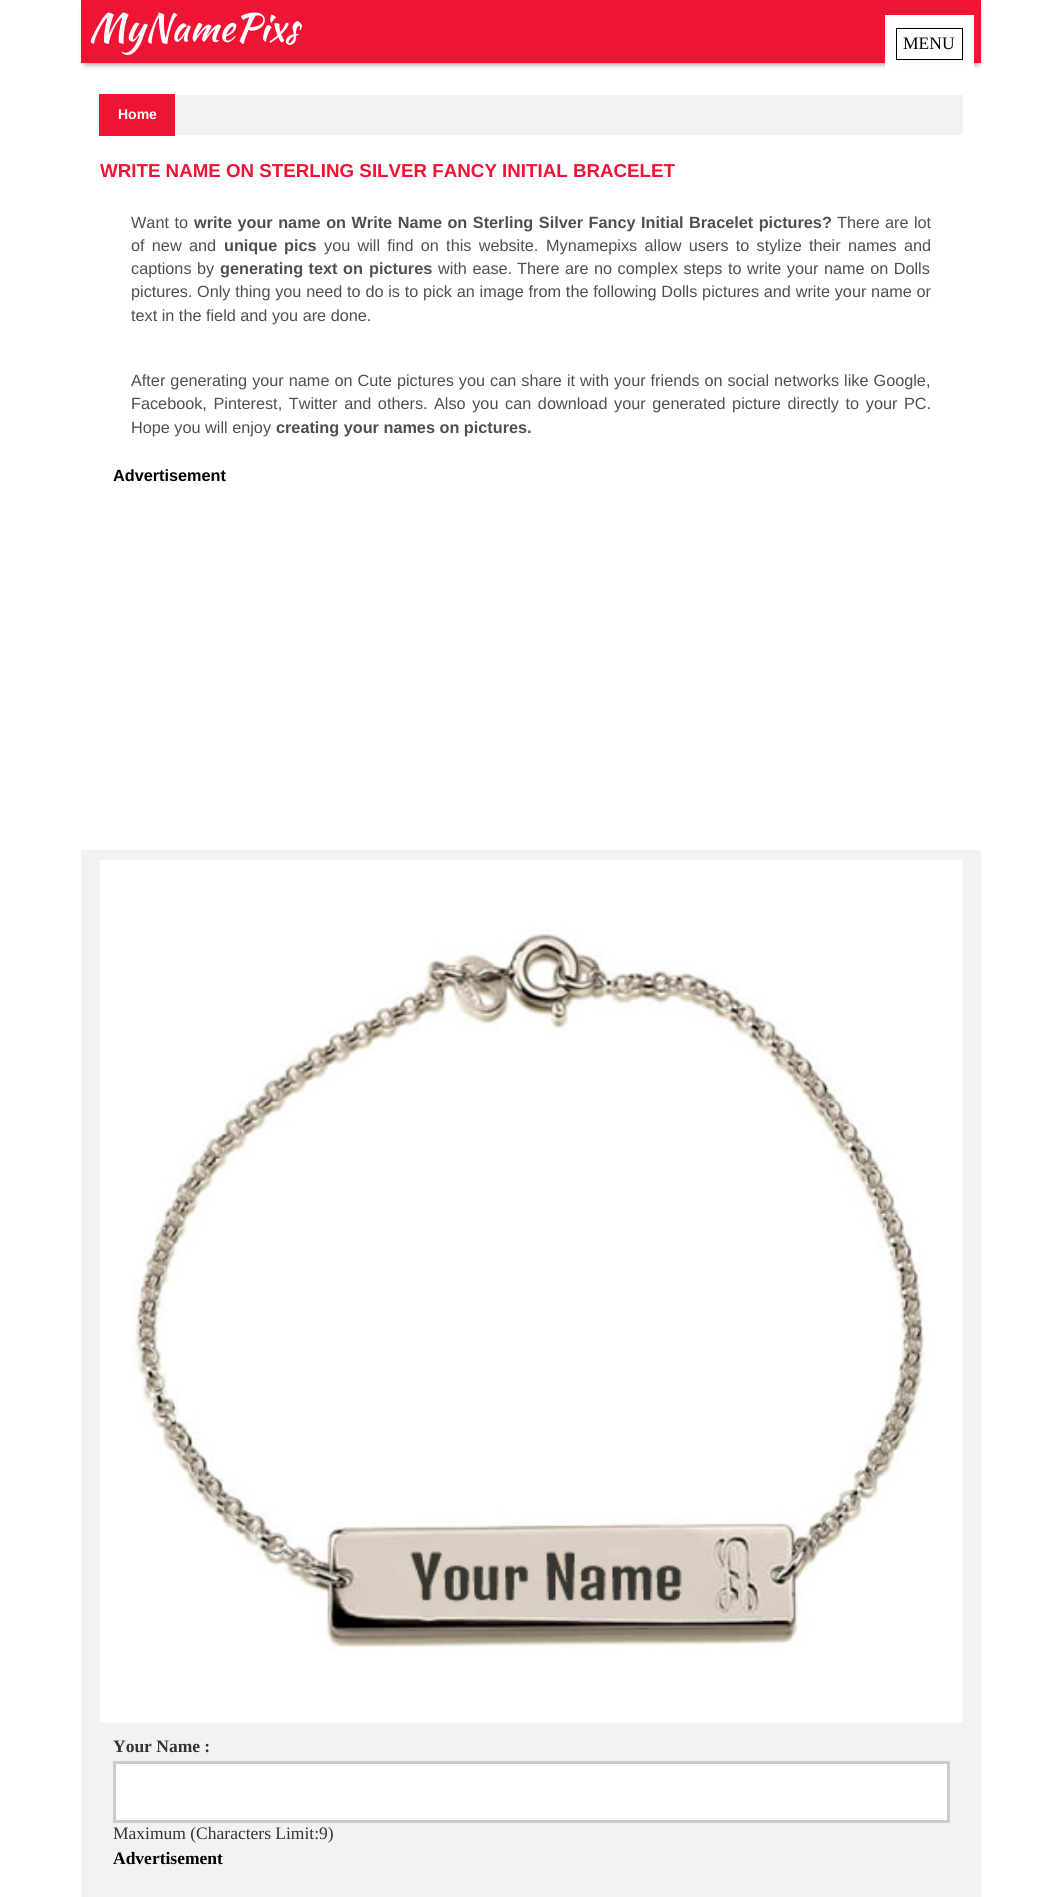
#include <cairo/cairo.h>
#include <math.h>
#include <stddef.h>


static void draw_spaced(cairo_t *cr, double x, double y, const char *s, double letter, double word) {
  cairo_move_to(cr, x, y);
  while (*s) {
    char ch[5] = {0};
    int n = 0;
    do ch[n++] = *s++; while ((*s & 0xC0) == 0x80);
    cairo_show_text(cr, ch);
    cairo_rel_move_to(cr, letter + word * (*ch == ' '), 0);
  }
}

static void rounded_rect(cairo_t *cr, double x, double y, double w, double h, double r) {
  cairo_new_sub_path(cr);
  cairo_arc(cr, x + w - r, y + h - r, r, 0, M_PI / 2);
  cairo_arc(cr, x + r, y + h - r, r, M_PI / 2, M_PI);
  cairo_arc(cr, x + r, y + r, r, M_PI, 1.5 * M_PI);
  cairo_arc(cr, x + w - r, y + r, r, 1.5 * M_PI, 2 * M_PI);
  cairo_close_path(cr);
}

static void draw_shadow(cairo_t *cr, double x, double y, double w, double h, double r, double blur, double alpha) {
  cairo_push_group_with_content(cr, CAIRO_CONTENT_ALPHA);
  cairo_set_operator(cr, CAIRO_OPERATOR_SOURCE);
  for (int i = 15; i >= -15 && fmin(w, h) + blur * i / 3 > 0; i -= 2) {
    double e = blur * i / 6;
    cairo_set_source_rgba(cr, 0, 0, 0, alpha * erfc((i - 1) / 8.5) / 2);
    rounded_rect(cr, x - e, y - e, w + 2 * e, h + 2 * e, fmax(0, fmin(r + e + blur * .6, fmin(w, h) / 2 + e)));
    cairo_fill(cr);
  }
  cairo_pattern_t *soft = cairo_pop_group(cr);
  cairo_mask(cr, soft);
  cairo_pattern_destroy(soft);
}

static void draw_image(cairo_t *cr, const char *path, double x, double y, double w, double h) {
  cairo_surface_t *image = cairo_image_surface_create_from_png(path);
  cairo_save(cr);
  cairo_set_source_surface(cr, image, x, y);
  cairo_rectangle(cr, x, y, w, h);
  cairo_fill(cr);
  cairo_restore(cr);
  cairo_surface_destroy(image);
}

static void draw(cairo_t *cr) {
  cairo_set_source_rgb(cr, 1, 1, 1);
  cairo_paint(cr);
  cairo_set_source_rgb(cr, 142 / 255.0, 142 / 255.0, 142 / 255.0);
  draw_shadow(cr, 85, 9, 893, 55, 0, 3, 1);
  cairo_set_source_rgb(cr, 239 / 255.0, 20 / 255.0, 51 / 255.0);
  cairo_rectangle(cr, 81, 0, 900, 63);
  cairo_fill(cr);
  cairo_set_source_rgb(cr, 1, 1, 1);
  cairo_rectangle(cr, 885, 15, 89, 55);
  cairo_fill(cr);
  cairo_rectangle(cr, 896.5, 28.5, 66, 31);
  cairo_set_source_rgb(cr, 0, 0, 0);
  cairo_set_line_width(cr, 1);
  cairo_stroke(cr);
  cairo_set_source_rgb(cr, 242 / 255.0, 242 / 255.0, 242 / 255.0);
  cairo_rectangle(cr, 175, 95, 788, 40);
  cairo_fill(cr);
  cairo_set_source_rgb(cr, 239 / 255.0, 20 / 255.0, 51 / 255.0);
  cairo_rectangle(cr, 99, 94, 76, 42);
  cairo_fill(cr);
  cairo_set_source_rgb(cr, 242 / 255.0, 242 / 255.0, 242 / 255.0);
  cairo_rectangle(cr, 81, 850, 900, 1047);
  cairo_fill(cr);
  draw_image(cr, "images/1.png", 100, 860, 863, 863);
  cairo_set_source_rgb(cr, 1, 1, 1);
  cairo_rectangle(cr, 114.5, 1762.5, 834, 59);
  cairo_fill_preserve(cr);
  cairo_set_source_rgb(cr, 204 / 255.0, 204 / 255.0, 204 / 255.0);
  cairo_set_line_width(cr, 3);
  cairo_stroke(cr);
  cairo_select_font_face(cr, "Kaushan Script", CAIRO_FONT_SLANT_NORMAL, CAIRO_FONT_WEIGHT_NORMAL);
  cairo_set_font_size(cr, 38.75);
  cairo_set_source_rgb(cr, 1, 1, 1);
  cairo_move_to(cr, 89, 41);
  cairo_show_text(cr, "MyNamePixs");
  cairo_select_font_face(cr, "Liberation Serif", CAIRO_FONT_SLANT_NORMAL, CAIRO_FONT_WEIGHT_NORMAL);
  cairo_set_font_size(cr, 17.5);
  cairo_set_source_rgb(cr, 0, 0, 0);
  cairo_move_to(cr, 903, 49);
  cairo_show_text(cr, "MENU");
  cairo_select_font_face(cr, "Liberation Sans", CAIRO_FONT_SLANT_NORMAL, CAIRO_FONT_WEIGHT_BOLD);
  cairo_set_font_size(cr, 14);
  cairo_set_source_rgb(cr, 1, 1, 1);
  cairo_move_to(cr, 118, 119);
  cairo_show_text(cr, "Home");
  cairo_set_font_size(cr, 18.75);
  cairo_set_source_rgb(cr, 239 / 255.0, 20 / 255.0, 51 / 255.0);
  cairo_move_to(cr, 100, 177);
  cairo_show_text(cr, "WRITE NAME ON STERLING SILVER FANCY INITIAL BRACELET");
  cairo_select_font_face(cr, "Liberation Sans", CAIRO_FONT_SLANT_NORMAL, CAIRO_FONT_WEIGHT_NORMAL);
  cairo_set_font_size(cr, 16.25);
  cairo_set_source_rgb(cr, 79 / 255.0, 79 / 255.0, 79 / 255.0);
  draw_spaced(cr, 131, 228, "Want to", 0, 1);
  cairo_select_font_face(cr, "Liberation Sans", CAIRO_FONT_SLANT_NORMAL, CAIRO_FONT_WEIGHT_BOLD);
  draw_spaced(cr, 194, 228, "write your name on Write Name on Sterling Silver Fancy Initial Bracelet pictures?", 0, 1);
  cairo_select_font_face(cr, "Liberation Sans", CAIRO_FONT_SLANT_NORMAL, CAIRO_FONT_WEIGHT_NORMAL);
  draw_spaced(cr, 837, 228, "There are lot", 0, 1);
  draw_spaced(cr, 131, 251, "of new and", 0, 2.75);
  cairo_select_font_face(cr, "Liberation Sans", CAIRO_FONT_SLANT_NORMAL, CAIRO_FONT_WEIGHT_BOLD);
  cairo_move_to(cr, 224, 251);
  cairo_show_text(cr, "unique");
  cairo_move_to(cr, 284, 251);
  cairo_show_text(cr, "pics");
  cairo_select_font_face(cr, "Liberation Sans", CAIRO_FONT_SLANT_NORMAL, CAIRO_FONT_WEIGHT_NORMAL);
  draw_spaced(cr, 324, 251, "you will find on this website.", 0, 2.75);
  draw_spaced(cr, 546, 251, "Mynamepixs allow users to stylize their names and", 0, 2.75);
  draw_spaced(cr, 131, 274, "captions by", 0, 1);
  cairo_select_font_face(cr, "Liberation Sans", CAIRO_FONT_SLANT_NORMAL, CAIRO_FONT_WEIGHT_BOLD);
  draw_spaced(cr, 220, 274, "generating text on", 0, 1);
  cairo_move_to(cr, 369, 274);
  cairo_show_text(cr, "pictures");
  cairo_select_font_face(cr, "Liberation Sans", CAIRO_FONT_SLANT_NORMAL, CAIRO_FONT_WEIGHT_NORMAL);
  draw_spaced(cr, 438, 274, "with ease.", 0, 1);
  draw_spaced(cr, 517, 274, "There are no complex steps to write your name on Dolls", 0, 1);
  cairo_move_to(cr, 131, 297);
  cairo_show_text(cr, "pictures.");
  draw_spaced(cr, 197, 297, "Only thing you need to do is to pick an image from the following Dolls pictures and write your name or", 0, 0.25);
  cairo_move_to(cr, 131, 321);
  cairo_show_text(cr, "text in the field and you are done.");
  draw_spaced(cr, 131, 386, "After generating your name on Cute pictures you can share it with your friends on social networks like Google,", 0, 0.5);
  draw_spaced(cr, 131, 409, "Facebook, Pinterest, Twitter and others.", 0, 2.1);
  draw_spaced(cr, 434, 409, "Also you can download your generated picture directly to your PC.", 0, 2.1);
  cairo_move_to(cr, 131, 433);
  cairo_show_text(cr, "Hope you will enjoy");
  cairo_select_font_face(cr, "Liberation Sans", CAIRO_FONT_SLANT_NORMAL, CAIRO_FONT_WEIGHT_BOLD);
  cairo_move_to(cr, 276, 433);
  cairo_show_text(cr, "creating your names on pictures.");
  cairo_set_source_rgb(cr, 0, 0, 0);
  cairo_move_to(cr, 113, 481);
  cairo_show_text(cr, "Advertisement");
  cairo_select_font_face(cr, "Liberation Serif", CAIRO_FONT_SLANT_NORMAL, CAIRO_FONT_WEIGHT_BOLD);
  cairo_set_font_size(cr, 17.5);
  cairo_set_source_rgb(cr, 51 / 255.0, 51 / 255.0, 51 / 255.0);
  cairo_move_to(cr, 113, 1752);
  cairo_show_text(cr, "Your Name :");
  cairo_select_font_face(cr, "Liberation Serif", CAIRO_FONT_SLANT_NORMAL, CAIRO_FONT_WEIGHT_NORMAL);
  cairo_move_to(cr, 113, 1839);
  cairo_show_text(cr, "Maximum (Characters Limit:9)");
  cairo_select_font_face(cr, "Liberation Serif", CAIRO_FONT_SLANT_NORMAL, CAIRO_FONT_WEIGHT_BOLD);
  cairo_set_source_rgb(cr, 0, 0, 0);
  cairo_move_to(cr, 113, 1864);
  cairo_show_text(cr, "Advertisement");
}

int main(void) {
  cairo_surface_t *surface = cairo_image_surface_create(CAIRO_FORMAT_RGB24, 1062, 1897);
  cairo_t *cr = cairo_create(surface);
  cairo_font_options_t *options = cairo_font_options_create();
  cairo_font_options_set_hint_metrics(options, CAIRO_HINT_METRICS_OFF);
  cairo_font_options_set_hint_style(options, CAIRO_HINT_STYLE_NONE);
  cairo_set_font_options(cr, options);
  cairo_set_miter_limit(cr, 4);
  draw(cr);
  cairo_surface_write_to_png(surface, "out.png");
  cairo_font_options_destroy(options);
  cairo_destroy(cr);
  cairo_surface_destroy(surface);
  return 0;
}
